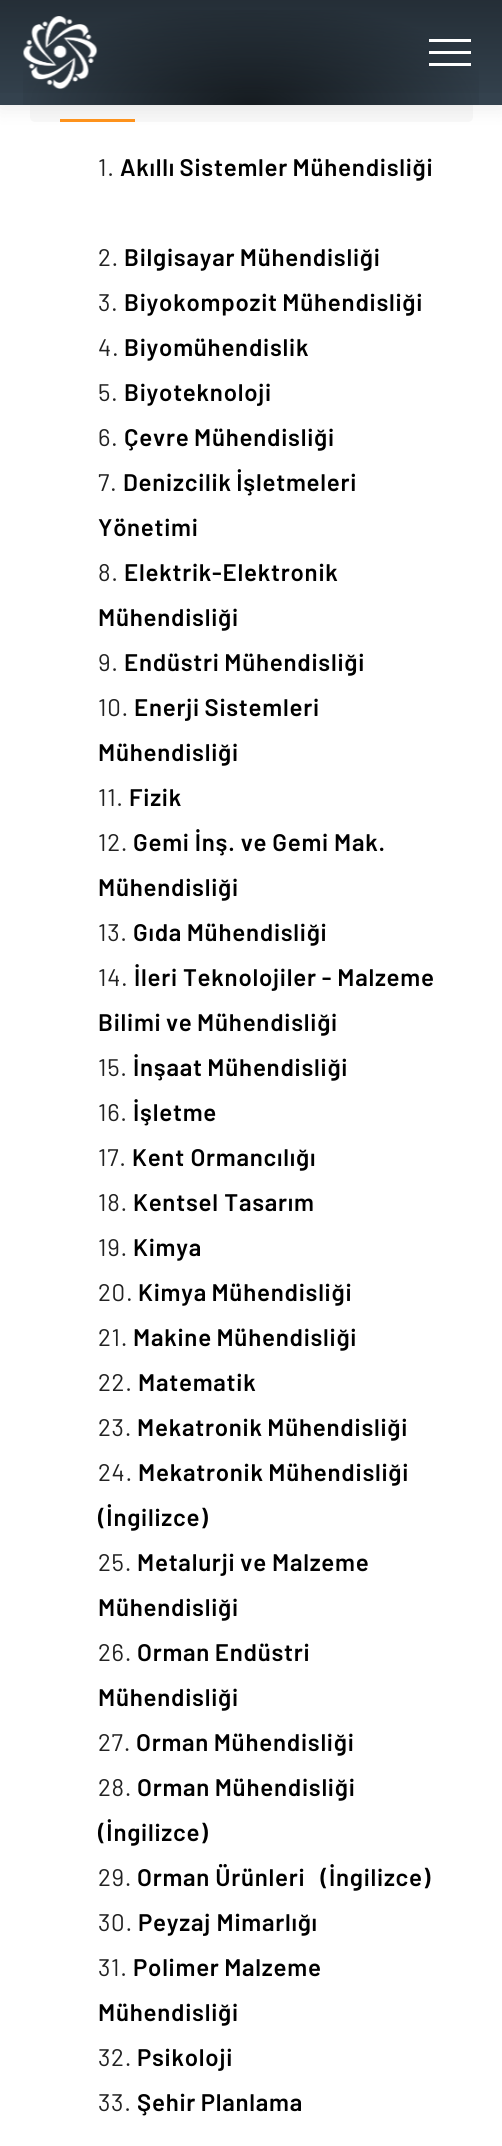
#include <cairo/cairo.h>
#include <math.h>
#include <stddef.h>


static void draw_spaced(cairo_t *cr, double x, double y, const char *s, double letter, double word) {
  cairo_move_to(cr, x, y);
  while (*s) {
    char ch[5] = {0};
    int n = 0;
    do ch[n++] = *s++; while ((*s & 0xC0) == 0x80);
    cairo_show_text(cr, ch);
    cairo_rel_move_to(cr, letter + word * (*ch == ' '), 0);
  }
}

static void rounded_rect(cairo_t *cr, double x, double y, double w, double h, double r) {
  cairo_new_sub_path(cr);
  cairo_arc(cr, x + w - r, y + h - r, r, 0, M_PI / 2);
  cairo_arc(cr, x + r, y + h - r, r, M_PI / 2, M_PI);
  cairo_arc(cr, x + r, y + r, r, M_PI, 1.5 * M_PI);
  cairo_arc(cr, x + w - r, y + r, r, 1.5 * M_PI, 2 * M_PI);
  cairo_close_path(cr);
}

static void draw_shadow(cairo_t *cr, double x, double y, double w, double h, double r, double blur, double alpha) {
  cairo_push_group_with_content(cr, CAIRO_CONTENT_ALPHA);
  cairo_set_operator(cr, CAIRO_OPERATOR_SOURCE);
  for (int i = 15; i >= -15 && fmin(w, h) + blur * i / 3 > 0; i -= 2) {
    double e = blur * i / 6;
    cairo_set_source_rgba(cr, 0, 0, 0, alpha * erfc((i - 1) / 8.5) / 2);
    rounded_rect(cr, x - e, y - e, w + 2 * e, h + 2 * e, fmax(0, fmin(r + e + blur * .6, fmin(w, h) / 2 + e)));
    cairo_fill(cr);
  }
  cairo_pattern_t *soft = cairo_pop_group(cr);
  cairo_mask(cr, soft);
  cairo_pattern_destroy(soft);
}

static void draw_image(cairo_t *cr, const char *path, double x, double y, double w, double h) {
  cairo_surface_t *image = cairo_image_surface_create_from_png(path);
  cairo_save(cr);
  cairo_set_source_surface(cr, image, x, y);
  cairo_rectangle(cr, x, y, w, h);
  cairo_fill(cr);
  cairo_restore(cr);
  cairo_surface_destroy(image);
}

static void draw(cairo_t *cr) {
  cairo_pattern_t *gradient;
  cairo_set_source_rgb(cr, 1, 1, 1);
  cairo_paint(cr);
  cairo_set_source_rgb(cr, 248 / 255.0, 248 / 255.0, 248 / 255.0);
  rounded_rect(cr, 30, -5, 443, 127, 5);
  cairo_fill(cr);
  cairo_set_source_rgb(cr, 1, 147 / 255.0, 28 / 255.0);
  cairo_rectangle(cr, 60, 119, 75, 3);
  cairo_fill(cr);
  cairo_set_source_rgb(cr, 0, 0, 0);
  draw_shadow(cr, 0, 0, 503, 105, 0, 11, 0.1);
  cairo_set_source_rgb(cr, 52 / 255.0, 66 / 255.0, 78 / 255.0);
  cairo_rectangle(cr, 0, 0, 502, 105);
  cairo_fill(cr);
  draw_image(cr, "images/1.png", 23, 10, 456, 95);
  gradient = cairo_pattern_create_linear(251, 0, 251, 105);
  cairo_pattern_add_color_stop_rgba(gradient, 0, 0, 0, 0, 0.3);
  cairo_pattern_add_color_stop_rgba(gradient, 1, 0, 0, 0, 0);
  cairo_set_source(cr, gradient);
  cairo_pattern_destroy(gradient);
  cairo_rectangle(cr, 0, 0, 502, 93);
  cairo_fill(cr);
  draw_image(cr, "images/2.png", 23, 16, 75, 74);
  cairo_set_source_rgb(cr, 1, 1, 1);
  cairo_rectangle(cr, 429, 51, 42, 3);
  cairo_fill(cr);
  cairo_rectangle(cr, 429, 39, 42, 3);
  cairo_fill(cr);
  cairo_rectangle(cr, 429, 63, 42, 3);
  cairo_fill(cr);
  cairo_select_font_face(cr, "Barlow", CAIRO_FONT_SLANT_NORMAL, CAIRO_FONT_WEIGHT_NORMAL);
  cairo_set_font_size(cr, 24);
  cairo_set_source_rgb(cr, 34 / 255.0, 34 / 255.0, 34 / 255.0);
  draw_spaced(cr, 98, 176, "1.", 0.75, 0);
  cairo_select_font_face(cr, "Barlow SemiBold", CAIRO_FONT_SLANT_NORMAL, CAIRO_FONT_WEIGHT_NORMAL);
  cairo_set_source_rgb(cr, 0, 0, 0);
  draw_spaced(cr, 120, 176, "Akıllı Sistemler Mühendisliği", 0.75, -1);
  cairo_select_font_face(cr, "Barlow", CAIRO_FONT_SLANT_NORMAL, CAIRO_FONT_WEIGHT_NORMAL);
  cairo_set_source_rgb(cr, 34 / 255.0, 34 / 255.0, 34 / 255.0);
  draw_spaced(cr, 98, 266, "2.", 0.75, 0);
  cairo_select_font_face(cr, "Barlow SemiBold", CAIRO_FONT_SLANT_NORMAL, CAIRO_FONT_WEIGHT_NORMAL);
  cairo_set_source_rgb(cr, 0, 0, 0);
  draw_spaced(cr, 124, 266, "Bilgisayar Mühendisliği", 0.75, -1);
  cairo_select_font_face(cr, "Barlow", CAIRO_FONT_SLANT_NORMAL, CAIRO_FONT_WEIGHT_NORMAL);
  cairo_set_source_rgb(cr, 34 / 255.0, 34 / 255.0, 34 / 255.0);
  draw_spaced(cr, 98, 311, "3.", 0.75, 0);
  cairo_select_font_face(cr, "Barlow SemiBold", CAIRO_FONT_SLANT_NORMAL, CAIRO_FONT_WEIGHT_NORMAL);
  cairo_set_source_rgb(cr, 0, 0, 0);
  draw_spaced(cr, 124, 311, "Biyokompozit Mühendisliği", 0.75, -1);
  cairo_select_font_face(cr, "Barlow", CAIRO_FONT_SLANT_NORMAL, CAIRO_FONT_WEIGHT_NORMAL);
  cairo_set_source_rgb(cr, 34 / 255.0, 34 / 255.0, 34 / 255.0);
  draw_spaced(cr, 98, 356, "4.", 0.75, 0);
  cairo_select_font_face(cr, "Barlow SemiBold", CAIRO_FONT_SLANT_NORMAL, CAIRO_FONT_WEIGHT_NORMAL);
  cairo_set_source_rgb(cr, 0, 0, 0);
  draw_spaced(cr, 124, 356, "Biyomühendislik", 0.75, 0);
  cairo_select_font_face(cr, "Barlow", CAIRO_FONT_SLANT_NORMAL, CAIRO_FONT_WEIGHT_NORMAL);
  cairo_set_source_rgb(cr, 34 / 255.0, 34 / 255.0, 34 / 255.0);
  draw_spaced(cr, 98, 401, "5.", 0.75, 0);
  cairo_select_font_face(cr, "Barlow SemiBold", CAIRO_FONT_SLANT_NORMAL, CAIRO_FONT_WEIGHT_NORMAL);
  cairo_set_source_rgb(cr, 0, 0, 0);
  draw_spaced(cr, 124, 401, "Biyoteknoloji", 0.75, 0);
  cairo_select_font_face(cr, "Barlow", CAIRO_FONT_SLANT_NORMAL, CAIRO_FONT_WEIGHT_NORMAL);
  cairo_set_source_rgb(cr, 34 / 255.0, 34 / 255.0, 34 / 255.0);
  draw_spaced(cr, 98, 446, "6.", 0.75, 0);
  cairo_select_font_face(cr, "Barlow SemiBold", CAIRO_FONT_SLANT_NORMAL, CAIRO_FONT_WEIGHT_NORMAL);
  cairo_set_source_rgb(cr, 0, 0, 0);
  draw_spaced(cr, 124, 446, "Çevre Mühendisliği", 0.75, -1);
  cairo_select_font_face(cr, "Barlow", CAIRO_FONT_SLANT_NORMAL, CAIRO_FONT_WEIGHT_NORMAL);
  cairo_set_source_rgb(cr, 34 / 255.0, 34 / 255.0, 34 / 255.0);
  draw_spaced(cr, 98, 491, "7.", 0.75, 0);
  cairo_select_font_face(cr, "Barlow SemiBold", CAIRO_FONT_SLANT_NORMAL, CAIRO_FONT_WEIGHT_NORMAL);
  cairo_set_source_rgb(cr, 0, 0, 0);
  draw_spaced(cr, 123, 491, "Denizcilik İşletmeleri", 0.75, -1);
  draw_spaced(cr, 98, 536, "Yönetimi", 0.75, 0);
  cairo_select_font_face(cr, "Barlow", CAIRO_FONT_SLANT_NORMAL, CAIRO_FONT_WEIGHT_NORMAL);
  cairo_set_source_rgb(cr, 34 / 255.0, 34 / 255.0, 34 / 255.0);
  draw_spaced(cr, 98, 581, "8.", 0.75, 0);
  cairo_select_font_face(cr, "Barlow SemiBold", CAIRO_FONT_SLANT_NORMAL, CAIRO_FONT_WEIGHT_NORMAL);
  cairo_set_source_rgb(cr, 0, 0, 0);
  draw_spaced(cr, 124, 581, "Elektrik-Elektronik", 0.75, 0);
  draw_spaced(cr, 98, 626, "Mühendisliği", 0.75, 0);
  cairo_select_font_face(cr, "Barlow", CAIRO_FONT_SLANT_NORMAL, CAIRO_FONT_WEIGHT_NORMAL);
  cairo_set_source_rgb(cr, 34 / 255.0, 34 / 255.0, 34 / 255.0);
  draw_spaced(cr, 98, 671, "9.", 0.75, 0);
  cairo_select_font_face(cr, "Barlow SemiBold", CAIRO_FONT_SLANT_NORMAL, CAIRO_FONT_WEIGHT_NORMAL);
  cairo_set_source_rgb(cr, 0, 0, 0);
  draw_spaced(cr, 124, 671, "Endüstri Mühendisliği", 0.75, -1);
  cairo_select_font_face(cr, "Barlow", CAIRO_FONT_SLANT_NORMAL, CAIRO_FONT_WEIGHT_NORMAL);
  cairo_set_source_rgb(cr, 34 / 255.0, 34 / 255.0, 34 / 255.0);
  draw_spaced(cr, 98, 716, "10.", 0.75, 0);
  cairo_select_font_face(cr, "Barlow SemiBold", CAIRO_FONT_SLANT_NORMAL, CAIRO_FONT_WEIGHT_NORMAL);
  cairo_set_source_rgb(cr, 0, 0, 0);
  draw_spaced(cr, 134, 716, "Enerji Sistemleri", 0.75, -1);
  draw_spaced(cr, 98, 761, "Mühendisliği", 0.75, 0);
  cairo_select_font_face(cr, "Barlow", CAIRO_FONT_SLANT_NORMAL, CAIRO_FONT_WEIGHT_NORMAL);
  cairo_set_source_rgb(cr, 34 / 255.0, 34 / 255.0, 34 / 255.0);
  draw_spaced(cr, 98, 806, "11.", 0.75, 0);
  cairo_select_font_face(cr, "Barlow SemiBold", CAIRO_FONT_SLANT_NORMAL, CAIRO_FONT_WEIGHT_NORMAL);
  cairo_set_source_rgb(cr, 0, 0, 0);
  draw_spaced(cr, 129, 806, "Fizik", 0.75, 0);
  cairo_select_font_face(cr, "Barlow", CAIRO_FONT_SLANT_NORMAL, CAIRO_FONT_WEIGHT_NORMAL);
  cairo_set_source_rgb(cr, 34 / 255.0, 34 / 255.0, 34 / 255.0);
  draw_spaced(cr, 98, 851, "12.", 0.75, 0);
  cairo_select_font_face(cr, "Barlow SemiBold", CAIRO_FONT_SLANT_NORMAL, CAIRO_FONT_WEIGHT_NORMAL);
  cairo_set_source_rgb(cr, 0, 0, 0);
  draw_spaced(cr, 133, 851, "Gemi İnş. ve Gemi Mak.", 0.75, -0.5);
  draw_spaced(cr, 98, 896, "Mühendisliği", 0.75, 0);
  cairo_select_font_face(cr, "Barlow", CAIRO_FONT_SLANT_NORMAL, CAIRO_FONT_WEIGHT_NORMAL);
  cairo_set_source_rgb(cr, 34 / 255.0, 34 / 255.0, 34 / 255.0);
  draw_spaced(cr, 98, 941, "13.", 0.75, 0);
  cairo_select_font_face(cr, "Barlow SemiBold", CAIRO_FONT_SLANT_NORMAL, CAIRO_FONT_WEIGHT_NORMAL);
  cairo_set_source_rgb(cr, 0, 0, 0);
  draw_spaced(cr, 133, 941, "Gıda Mühendisliği", 0.75, -1);
  cairo_select_font_face(cr, "Barlow", CAIRO_FONT_SLANT_NORMAL, CAIRO_FONT_WEIGHT_NORMAL);
  cairo_set_source_rgb(cr, 34 / 255.0, 34 / 255.0, 34 / 255.0);
  draw_spaced(cr, 98, 986, "14.", 0.75, 0);
  cairo_select_font_face(cr, "Barlow SemiBold", CAIRO_FONT_SLANT_NORMAL, CAIRO_FONT_WEIGHT_NORMAL);
  cairo_set_source_rgb(cr, 0, 0, 0);
  draw_spaced(cr, 134, 986, "İleri Teknolojiler - Malzeme", 0.75, -0.5);
  draw_spaced(cr, 98, 1031, "Bilimi ve Mühendisliği", 0.75, -1);
  cairo_select_font_face(cr, "Barlow", CAIRO_FONT_SLANT_NORMAL, CAIRO_FONT_WEIGHT_NORMAL);
  cairo_set_source_rgb(cr, 34 / 255.0, 34 / 255.0, 34 / 255.0);
  draw_spaced(cr, 98, 1076, "15.", 0.75, 0);
  cairo_select_font_face(cr, "Barlow SemiBold", CAIRO_FONT_SLANT_NORMAL, CAIRO_FONT_WEIGHT_NORMAL);
  cairo_set_source_rgb(cr, 0, 0, 0);
  draw_spaced(cr, 133, 1076, "İnşaat Mühendisliği", 0.75, -1);
  cairo_select_font_face(cr, "Barlow", CAIRO_FONT_SLANT_NORMAL, CAIRO_FONT_WEIGHT_NORMAL);
  cairo_set_source_rgb(cr, 34 / 255.0, 34 / 255.0, 34 / 255.0);
  draw_spaced(cr, 98, 1121, "16.", 0.75, 0);
  cairo_select_font_face(cr, "Barlow SemiBold", CAIRO_FONT_SLANT_NORMAL, CAIRO_FONT_WEIGHT_NORMAL);
  cairo_set_source_rgb(cr, 0, 0, 0);
  draw_spaced(cr, 133, 1121, "İşletme", 0.75, 0);
  cairo_select_font_face(cr, "Barlow", CAIRO_FONT_SLANT_NORMAL, CAIRO_FONT_WEIGHT_NORMAL);
  cairo_set_source_rgb(cr, 34 / 255.0, 34 / 255.0, 34 / 255.0);
  draw_spaced(cr, 98, 1166, "17.", 0.75, 0);
  cairo_select_font_face(cr, "Barlow SemiBold", CAIRO_FONT_SLANT_NORMAL, CAIRO_FONT_WEIGHT_NORMAL);
  cairo_set_source_rgb(cr, 0, 0, 0);
  draw_spaced(cr, 132, 1166, "Kent Ormancılığı", 0.75, 0);
  cairo_select_font_face(cr, "Barlow", CAIRO_FONT_SLANT_NORMAL, CAIRO_FONT_WEIGHT_NORMAL);
  cairo_set_source_rgb(cr, 34 / 255.0, 34 / 255.0, 34 / 255.0);
  draw_spaced(cr, 98, 1211, "18.", 0.75, 0);
  cairo_select_font_face(cr, "Barlow SemiBold", CAIRO_FONT_SLANT_NORMAL, CAIRO_FONT_WEIGHT_NORMAL);
  cairo_set_source_rgb(cr, 0, 0, 0);
  draw_spaced(cr, 133, 1211, "Kentsel Tasarım", 0.75, 0);
  cairo_select_font_face(cr, "Barlow", CAIRO_FONT_SLANT_NORMAL, CAIRO_FONT_WEIGHT_NORMAL);
  cairo_set_source_rgb(cr, 34 / 255.0, 34 / 255.0, 34 / 255.0);
  draw_spaced(cr, 98, 1256, "19.", 0.75, 0);
  cairo_select_font_face(cr, "Barlow SemiBold", CAIRO_FONT_SLANT_NORMAL, CAIRO_FONT_WEIGHT_NORMAL);
  cairo_set_source_rgb(cr, 0, 0, 0);
  draw_spaced(cr, 133, 1256, "Kimya", 0.75, 0);
  cairo_select_font_face(cr, "Barlow", CAIRO_FONT_SLANT_NORMAL, CAIRO_FONT_WEIGHT_NORMAL);
  cairo_set_source_rgb(cr, 34 / 255.0, 34 / 255.0, 34 / 255.0);
  draw_spaced(cr, 98, 1301, "20.", 0.75, 0);
  cairo_select_font_face(cr, "Barlow SemiBold", CAIRO_FONT_SLANT_NORMAL, CAIRO_FONT_WEIGHT_NORMAL);
  cairo_set_source_rgb(cr, 0, 0, 0);
  draw_spaced(cr, 138, 1301, "Kimya Mühendisliği", 0.75, -1);
  cairo_select_font_face(cr, "Barlow", CAIRO_FONT_SLANT_NORMAL, CAIRO_FONT_WEIGHT_NORMAL);
  cairo_set_source_rgb(cr, 34 / 255.0, 34 / 255.0, 34 / 255.0);
  draw_spaced(cr, 98, 1346, "21.", 0.75, 0);
  cairo_select_font_face(cr, "Barlow SemiBold", CAIRO_FONT_SLANT_NORMAL, CAIRO_FONT_WEIGHT_NORMAL);
  cairo_set_source_rgb(cr, 0, 0, 0);
  draw_spaced(cr, 133, 1346, "Makine Mühendisliği", 0.75, -1);
  cairo_select_font_face(cr, "Barlow", CAIRO_FONT_SLANT_NORMAL, CAIRO_FONT_WEIGHT_NORMAL);
  cairo_set_source_rgb(cr, 34 / 255.0, 34 / 255.0, 34 / 255.0);
  draw_spaced(cr, 98, 1391, "22.", 0.75, 0);
  cairo_select_font_face(cr, "Barlow SemiBold", CAIRO_FONT_SLANT_NORMAL, CAIRO_FONT_WEIGHT_NORMAL);
  cairo_set_source_rgb(cr, 0, 0, 0);
  draw_spaced(cr, 138, 1391, "Matematik", 0.75, 0);
  cairo_select_font_face(cr, "Barlow", CAIRO_FONT_SLANT_NORMAL, CAIRO_FONT_WEIGHT_NORMAL);
  cairo_set_source_rgb(cr, 34 / 255.0, 34 / 255.0, 34 / 255.0);
  draw_spaced(cr, 98, 1436, "23.", 0.75, 0);
  cairo_select_font_face(cr, "Barlow SemiBold", CAIRO_FONT_SLANT_NORMAL, CAIRO_FONT_WEIGHT_NORMAL);
  cairo_set_source_rgb(cr, 0, 0, 0);
  draw_spaced(cr, 137, 1436, "Mekatronik Mühendisliği", 0.75, -1);
  cairo_select_font_face(cr, "Barlow", CAIRO_FONT_SLANT_NORMAL, CAIRO_FONT_WEIGHT_NORMAL);
  cairo_set_source_rgb(cr, 34 / 255.0, 34 / 255.0, 34 / 255.0);
  draw_spaced(cr, 98, 1481, "24.", 0.75, 0);
  cairo_select_font_face(cr, "Barlow SemiBold", CAIRO_FONT_SLANT_NORMAL, CAIRO_FONT_WEIGHT_NORMAL);
  cairo_set_source_rgb(cr, 0, 0, 0);
  draw_spaced(cr, 138, 1481, "Mekatronik Mühendisliği", 0.75, -1);
  draw_spaced(cr, 98, 1526, "(İngilizce)", 0.75, 0);
  cairo_select_font_face(cr, "Barlow", CAIRO_FONT_SLANT_NORMAL, CAIRO_FONT_WEIGHT_NORMAL);
  cairo_set_source_rgb(cr, 34 / 255.0, 34 / 255.0, 34 / 255.0);
  draw_spaced(cr, 98, 1571, "25.", 0.75, 0);
  cairo_select_font_face(cr, "Barlow SemiBold", CAIRO_FONT_SLANT_NORMAL, CAIRO_FONT_WEIGHT_NORMAL);
  cairo_set_source_rgb(cr, 0, 0, 0);
  draw_spaced(cr, 137, 1571, "Metalurji ve Malzeme", 0.75, -0.5);
  draw_spaced(cr, 98, 1616, "Mühendisliği", 0.75, 0);
  cairo_select_font_face(cr, "Barlow", CAIRO_FONT_SLANT_NORMAL, CAIRO_FONT_WEIGHT_NORMAL);
  cairo_set_source_rgb(cr, 34 / 255.0, 34 / 255.0, 34 / 255.0);
  draw_spaced(cr, 98, 1661, "26.", 0.75, 0);
  cairo_select_font_face(cr, "Barlow SemiBold", CAIRO_FONT_SLANT_NORMAL, CAIRO_FONT_WEIGHT_NORMAL);
  cairo_set_source_rgb(cr, 0, 0, 0);
  draw_spaced(cr, 137, 1661, "Orman Endüstri", 0.75, -1);
  draw_spaced(cr, 98, 1706, "Mühendisliği", 0.75, 0);
  cairo_select_font_face(cr, "Barlow", CAIRO_FONT_SLANT_NORMAL, CAIRO_FONT_WEIGHT_NORMAL);
  cairo_set_source_rgb(cr, 34 / 255.0, 34 / 255.0, 34 / 255.0);
  draw_spaced(cr, 98, 1751, "27.", 0.75, 0);
  cairo_select_font_face(cr, "Barlow SemiBold", CAIRO_FONT_SLANT_NORMAL, CAIRO_FONT_WEIGHT_NORMAL);
  cairo_set_source_rgb(cr, 0, 0, 0);
  draw_spaced(cr, 136, 1751, "Orman Mühendisliği", 0.75, -1);
  cairo_select_font_face(cr, "Barlow", CAIRO_FONT_SLANT_NORMAL, CAIRO_FONT_WEIGHT_NORMAL);
  cairo_set_source_rgb(cr, 34 / 255.0, 34 / 255.0, 34 / 255.0);
  draw_spaced(cr, 98, 1796, "28.", 0.75, 0);
  cairo_select_font_face(cr, "Barlow SemiBold", CAIRO_FONT_SLANT_NORMAL, CAIRO_FONT_WEIGHT_NORMAL);
  cairo_set_source_rgb(cr, 0, 0, 0);
  draw_spaced(cr, 137, 1796, "Orman Mühendisliği", 0.75, -1);
  draw_spaced(cr, 98, 1841, "(İngilizce)", 0.75, 0);
  cairo_select_font_face(cr, "Barlow", CAIRO_FONT_SLANT_NORMAL, CAIRO_FONT_WEIGHT_NORMAL);
  cairo_set_source_rgb(cr, 34 / 255.0, 34 / 255.0, 34 / 255.0);
  draw_spaced(cr, 98, 1886, "29.", 0.75, 0);
  cairo_select_font_face(cr, "Barlow SemiBold", CAIRO_FONT_SLANT_NORMAL, CAIRO_FONT_WEIGHT_NORMAL);
  cairo_set_source_rgb(cr, 0, 0, 0);
  draw_spaced(cr, 137, 1886, "Orman Ürünleri   (İngilizce)", 0.75, -0.5);
  cairo_select_font_face(cr, "Barlow", CAIRO_FONT_SLANT_NORMAL, CAIRO_FONT_WEIGHT_NORMAL);
  cairo_set_source_rgb(cr, 34 / 255.0, 34 / 255.0, 34 / 255.0);
  draw_spaced(cr, 98, 1931, "30.", 0.75, 0);
  cairo_select_font_face(cr, "Barlow SemiBold", CAIRO_FONT_SLANT_NORMAL, CAIRO_FONT_WEIGHT_NORMAL);
  cairo_set_source_rgb(cr, 0, 0, 0);
  draw_spaced(cr, 138, 1931, "Peyzaj Mimarlığı", 0.75, 0);
  cairo_select_font_face(cr, "Barlow", CAIRO_FONT_SLANT_NORMAL, CAIRO_FONT_WEIGHT_NORMAL);
  cairo_set_source_rgb(cr, 34 / 255.0, 34 / 255.0, 34 / 255.0);
  draw_spaced(cr, 98, 1976, "31.", 0.75, 0);
  cairo_select_font_face(cr, "Barlow SemiBold", CAIRO_FONT_SLANT_NORMAL, CAIRO_FONT_WEIGHT_NORMAL);
  cairo_set_source_rgb(cr, 0, 0, 0);
  draw_spaced(cr, 133, 1976, "Polimer Malzeme", 0.75, -1);
  draw_spaced(cr, 98, 2021, "Mühendisliği", 0.75, 0);
  cairo_select_font_face(cr, "Barlow", CAIRO_FONT_SLANT_NORMAL, CAIRO_FONT_WEIGHT_NORMAL);
  cairo_set_source_rgb(cr, 34 / 255.0, 34 / 255.0, 34 / 255.0);
  draw_spaced(cr, 98, 2066, "32.", 0.75, 0);
  cairo_select_font_face(cr, "Barlow SemiBold", CAIRO_FONT_SLANT_NORMAL, CAIRO_FONT_WEIGHT_NORMAL);
  cairo_set_source_rgb(cr, 0, 0, 0);
  draw_spaced(cr, 137, 2066, "Psikoloji", 0.75, 0);
  cairo_select_font_face(cr, "Barlow", CAIRO_FONT_SLANT_NORMAL, CAIRO_FONT_WEIGHT_NORMAL);
  cairo_set_source_rgb(cr, 34 / 255.0, 34 / 255.0, 34 / 255.0);
  draw_spaced(cr, 98, 2111, "33.", 0.75, 0);
  cairo_select_font_face(cr, "Barlow SemiBold", CAIRO_FONT_SLANT_NORMAL, CAIRO_FONT_WEIGHT_NORMAL);
  cairo_set_source_rgb(cr, 0, 0, 0);
  draw_spaced(cr, 137, 2111, "Şehir Planlama", 0.75, -1);
}

int main(void) {
  cairo_surface_t *surface = cairo_image_surface_create(CAIRO_FORMAT_RGB24, 502, 2146);
  cairo_t *cr = cairo_create(surface);
  cairo_font_options_t *options = cairo_font_options_create();
  cairo_font_options_set_hint_metrics(options, CAIRO_HINT_METRICS_OFF);
  cairo_font_options_set_hint_style(options, CAIRO_HINT_STYLE_NONE);
  cairo_set_font_options(cr, options);
  cairo_set_miter_limit(cr, 4);
  draw(cr);
  cairo_surface_write_to_png(surface, "out.png");
  cairo_font_options_destroy(options);
  cairo_destroy(cr);
  cairo_surface_destroy(surface);
  return 0;
}
